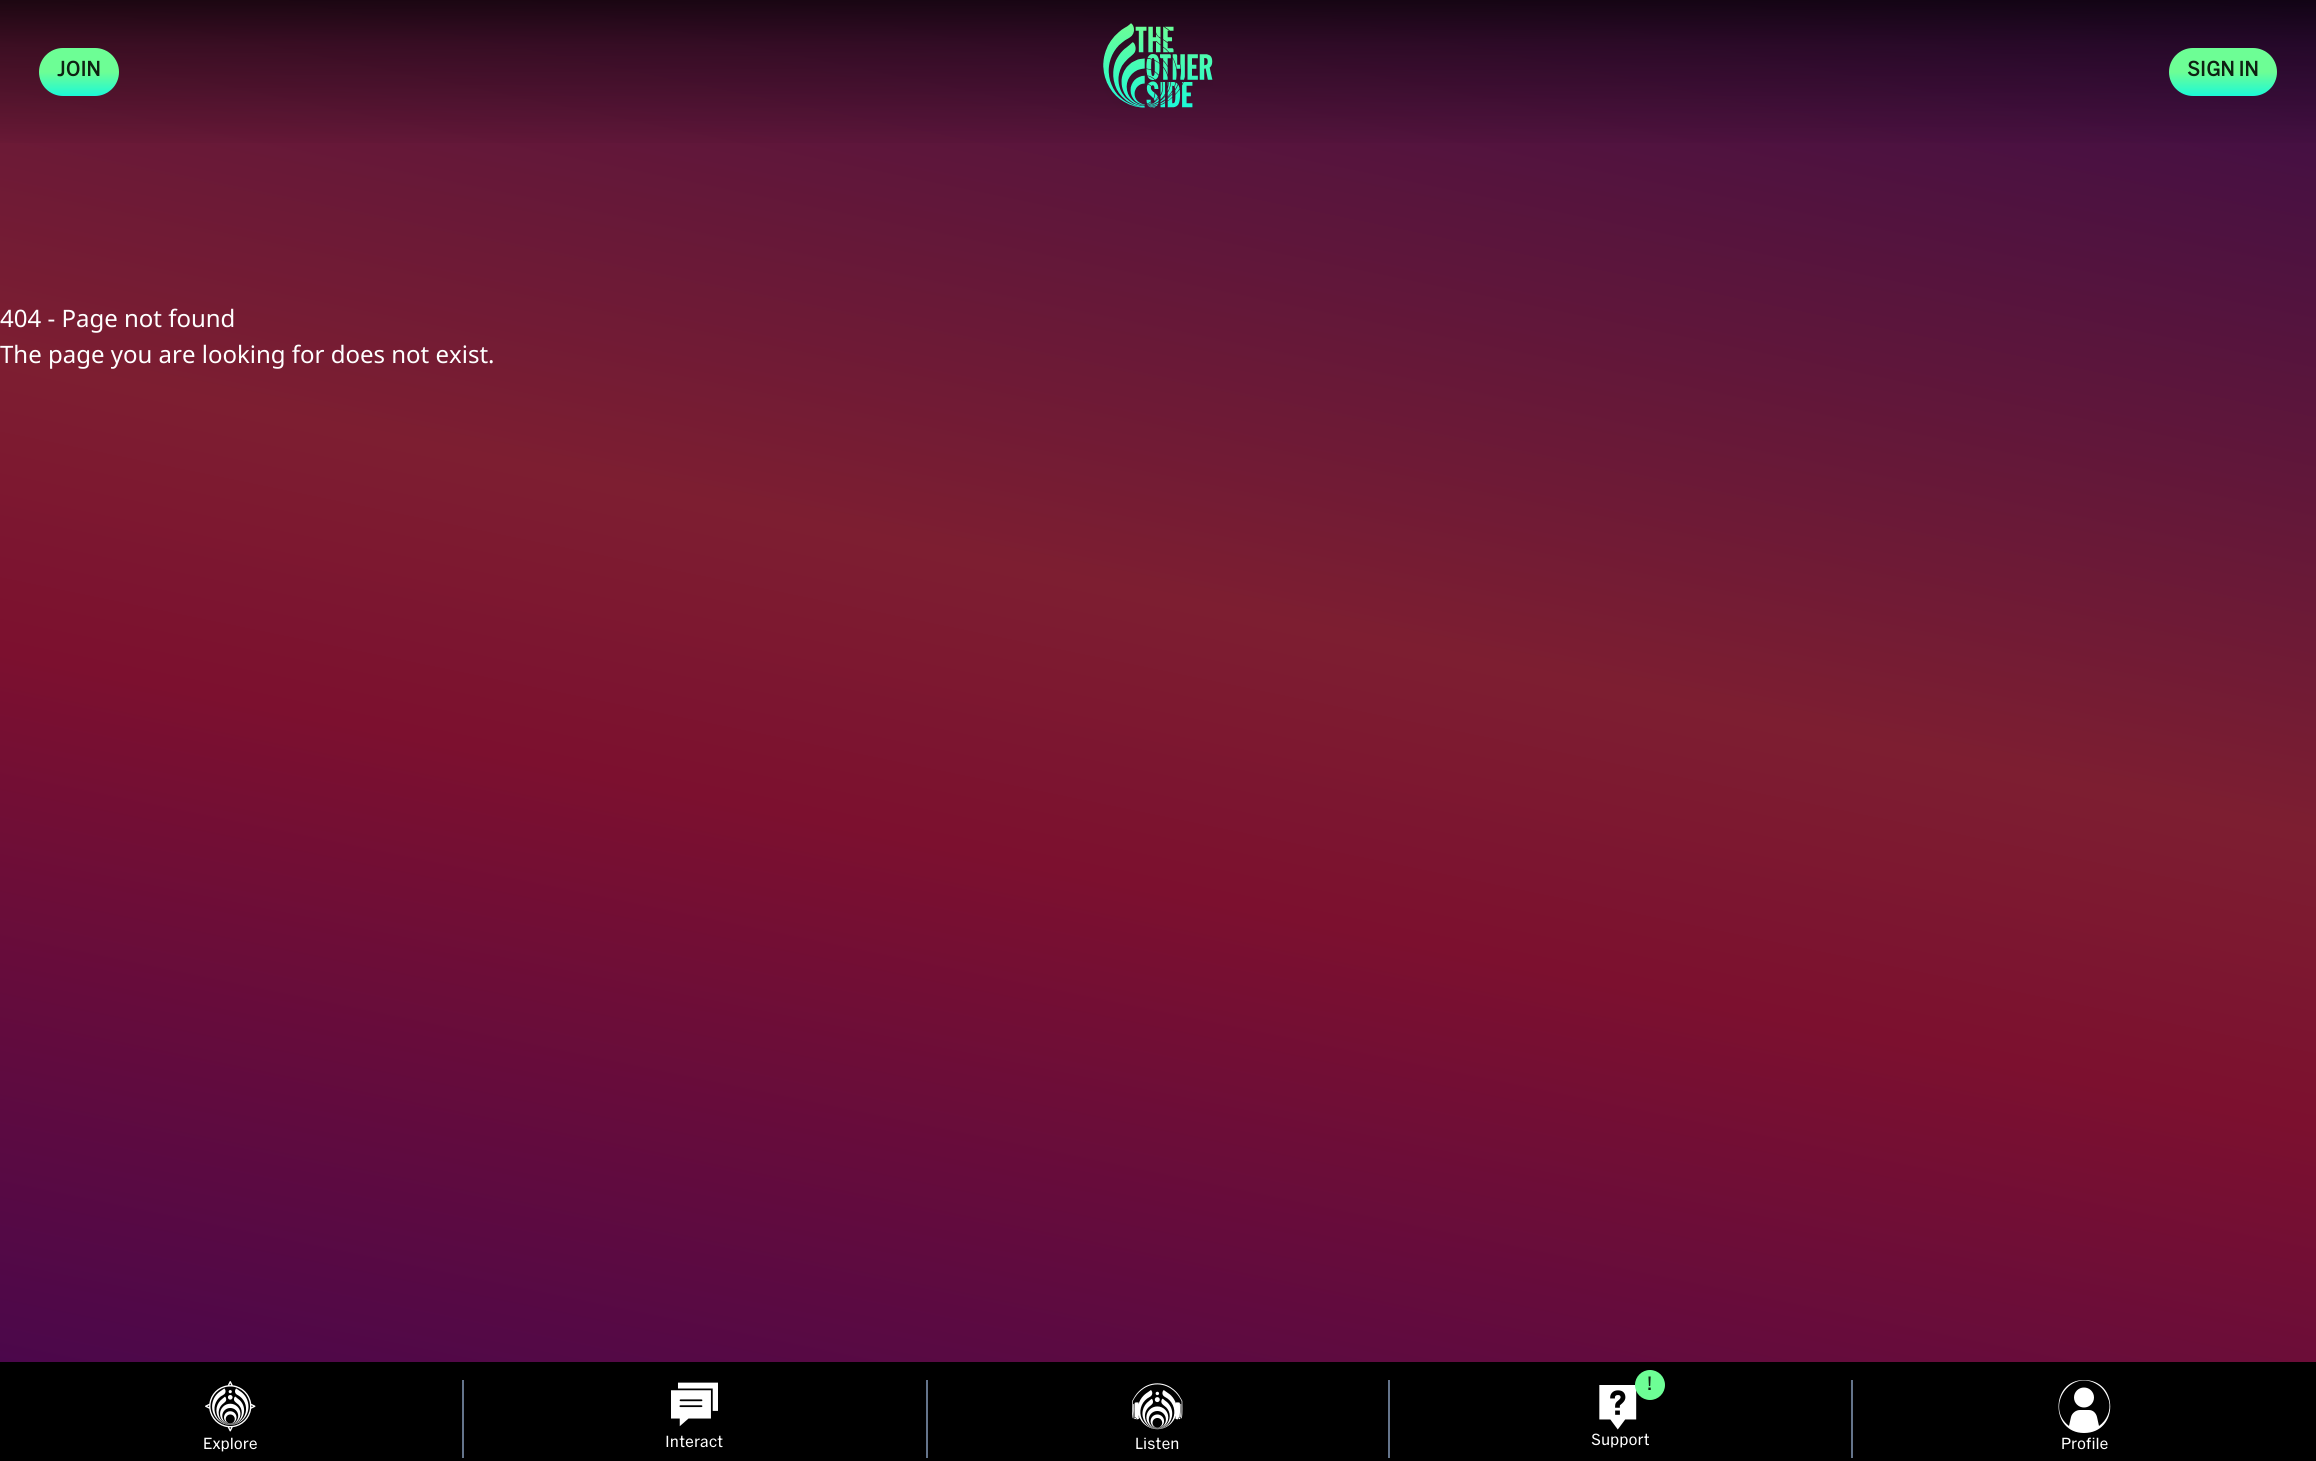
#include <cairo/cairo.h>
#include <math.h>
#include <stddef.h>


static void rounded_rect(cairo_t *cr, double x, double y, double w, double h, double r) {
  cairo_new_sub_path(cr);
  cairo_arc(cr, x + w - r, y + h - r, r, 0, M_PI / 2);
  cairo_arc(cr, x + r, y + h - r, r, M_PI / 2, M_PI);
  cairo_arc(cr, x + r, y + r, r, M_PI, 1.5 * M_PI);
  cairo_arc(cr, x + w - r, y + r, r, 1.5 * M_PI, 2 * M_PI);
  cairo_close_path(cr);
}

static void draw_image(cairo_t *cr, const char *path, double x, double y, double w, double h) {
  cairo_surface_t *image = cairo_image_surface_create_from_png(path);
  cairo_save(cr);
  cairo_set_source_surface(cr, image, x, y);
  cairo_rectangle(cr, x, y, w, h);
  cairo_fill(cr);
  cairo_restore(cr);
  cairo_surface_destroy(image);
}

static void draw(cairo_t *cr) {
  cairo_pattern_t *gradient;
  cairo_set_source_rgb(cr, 1, 1, 1);
  cairo_paint(cr);
  gradient = cairo_pattern_create_linear(1349, -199, 966, 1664);
  cairo_pattern_add_color_stop_rgba(gradient, 0, 58 / 255.0, 13 / 255.0, 70 / 255.0, 1);
  cairo_pattern_add_color_stop_rgba(gradient, 0.43, 125 / 255.0, 30 / 255.0, 49 / 255.0, 1);
  cairo_pattern_add_color_stop_rgba(gradient, 0.58, 124 / 255.0, 16 / 255.0, 47 / 255.0, 1);
  cairo_pattern_add_color_stop_rgba(gradient, 1, 68 / 255.0, 6 / 255.0, 79 / 255.0, 1);
  cairo_set_source(cr, gradient);
  cairo_pattern_destroy(gradient);
  cairo_rectangle(cr, 0, 0, 2316, 1362);
  cairo_fill(cr);
  gradient = cairo_pattern_create_linear(1158, 150, 1158, 0);
  cairo_pattern_add_color_stop_rgba(gradient, 0, 0, 0, 0, 0);
  cairo_pattern_add_color_stop_rgba(gradient, 0.7, 0, 0, 0, 0.4);
  cairo_pattern_add_color_stop_rgba(gradient, 1, 0, 0, 0, 0.7);
  cairo_set_source(cr, gradient);
  cairo_pattern_destroy(gradient);
  cairo_rectangle(cr, 0, 0, 2316, 143);
  cairo_fill(cr);
  gradient = cairo_pattern_create_linear(79, 48, 79, 96);
  cairo_pattern_add_color_stop_rgba(gradient, 0, 109 / 255.0, 254 / 255.0, 149 / 255.0, 1);
  cairo_pattern_add_color_stop_rgba(gradient, 0.5, 109 / 255.0, 254 / 255.0, 149 / 255.0, 1);
  cairo_pattern_add_color_stop_rgba(gradient, 1, 28 / 255.0, 249 / 255.0, 215 / 255.0, 1);
  cairo_set_source(cr, gradient);
  cairo_pattern_destroy(gradient);
  rounded_rect(cr, 39, 48, 80, 48, 24);
  cairo_fill(cr);
  draw_image(cr, "images/1.png", 1103, 23, 110, 85);
  gradient = cairo_pattern_create_linear(2223, 48, 2223, 96);
  cairo_pattern_add_color_stop_rgba(gradient, 0, 109 / 255.0, 254 / 255.0, 149 / 255.0, 1);
  cairo_pattern_add_color_stop_rgba(gradient, 0.5, 109 / 255.0, 254 / 255.0, 149 / 255.0, 1);
  cairo_pattern_add_color_stop_rgba(gradient, 1, 28 / 255.0, 249 / 255.0, 215 / 255.0, 1);
  cairo_set_source(cr, gradient);
  cairo_pattern_destroy(gradient);
  rounded_rect(cr, 2169, 48, 108, 48, 24);
  cairo_fill(cr);
  cairo_set_source_rgb(cr, 0, 0, 0);
  cairo_rectangle(cr, 0, 1362, 2316, 99);
  cairo_fill(cr);
  cairo_set_source_rgb(cr, 100 / 255.0, 116 / 255.0, 139 / 255.0);
  cairo_rectangle(cr, 462, 1380, 2, 78);
  cairo_fill(cr);
  draw_image(cr, "images/2.png", 205, 1381, 51, 51);
  cairo_rectangle(cr, 926, 1380, 2, 78);
  cairo_fill(cr);
  draw_image(cr, "images/3.png", 671, 1382, 47, 45);
  cairo_rectangle(cr, 1388, 1380, 2, 78);
  cairo_fill(cr);
  draw_image(cr, "images/4.png", 1132, 1383, 51, 47);
  cairo_rectangle(cr, 1851, 1380, 2, 78);
  cairo_fill(cr);
  draw_image(cr, "images/5.png", 1599, 1385, 38, 45);
  cairo_set_source_rgb(cr, 109 / 255.0, 254 / 255.0, 149 / 255.0);
  cairo_arc(cr, 1650, 1385, 15, 0, 2 * M_PI);
  cairo_fill(cr);
  cairo_set_source_rgb(cr, 1, 1, 1);
  cairo_arc(cr, 2084, 1397.5, 10, 0, 2 * M_PI);
  cairo_fill(cr);
  cairo_new_path(cr);
  cairo_move_to(cr, 2084, 1380);
  cairo_curve_to(cr, 2050, 1380, 2050, 1433, 2084, 1433);
  cairo_curve_to(cr, 2119, 1433, 2119, 1380, 2084, 1380);
  cairo_close_path(cr);
  cairo_move_to(cr, 2099, 1426);
  cairo_line_to(cr, 2097, 1417);
  cairo_curve_to(cr, 2096, 1413, 2093, 1410, 2089, 1410);
  cairo_line_to(cr, 2080, 1410);
  cairo_curve_to(cr, 2076, 1410, 2072, 1413, 2071, 1417);
  cairo_line_to(cr, 2069, 1426);
  cairo_curve_to(cr, 2044, 1407, 2071, 1367, 2098, 1385);
  cairo_curve_to(cr, 2104, 1389, 2107, 1395, 2109, 1401);
  cairo_curve_to(cr, 2111, 1411, 2107, 1420, 2099, 1426);
  cairo_close_path(cr);
  cairo_fill(cr);
  cairo_select_font_face(cr, "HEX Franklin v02", CAIRO_FONT_SLANT_NORMAL, CAIRO_FONT_WEIGHT_BOLD);
  cairo_set_font_size(cr, 19.5);
  cairo_set_source_rgb(cr, 14 / 255.0, 33 / 255.0, 19 / 255.0);
  cairo_move_to(cr, 57, 76);
  cairo_show_text(cr, "JOIN");
  cairo_move_to(cr, 2187, 76);
  cairo_show_text(cr, "SIGN IN");
  cairo_select_font_face(cr, "Noto Sans", CAIRO_FONT_SLANT_NORMAL, CAIRO_FONT_WEIGHT_NORMAL);
  cairo_set_font_size(cr, 24);
  cairo_set_source_rgb(cr, 1, 1, 1);
  cairo_move_to(cr, 0, 327);
  cairo_show_text(cr, "404 - Page not found");
  cairo_move_to(cr, 0, 363);
  cairo_show_text(cr, "The page you are looking for does not exist.");
  cairo_select_font_face(cr, "HEX Franklin v02", CAIRO_FONT_SLANT_NORMAL, CAIRO_FONT_WEIGHT_NORMAL);
  cairo_set_font_size(cr, 15);
  cairo_move_to(cr, 203, 1449);
  cairo_show_text(cr, "Explore");
  cairo_move_to(cr, 665, 1447);
  cairo_show_text(cr, "Interact");
  cairo_move_to(cr, 1135, 1449);
  cairo_show_text(cr, "Listen");
  cairo_set_font_size(cr, 18);
  cairo_set_source_rgb(cr, 14 / 255.0, 33 / 255.0, 19 / 255.0);
  cairo_move_to(cr, 1647, 1390);
  cairo_show_text(cr, "!");
  cairo_set_font_size(cr, 15);
  cairo_set_source_rgb(cr, 1, 1, 1);
  cairo_move_to(cr, 1591, 1445);
  cairo_show_text(cr, "Support");
  cairo_move_to(cr, 2061, 1449);
  cairo_show_text(cr, "Profile");
}

int main(void) {
  cairo_surface_t *surface = cairo_image_surface_create(CAIRO_FORMAT_RGB24, 2316, 1461);
  cairo_t *cr = cairo_create(surface);
  cairo_font_options_t *options = cairo_font_options_create();
  cairo_font_options_set_hint_metrics(options, CAIRO_HINT_METRICS_OFF);
  cairo_font_options_set_hint_style(options, CAIRO_HINT_STYLE_NONE);
  cairo_set_font_options(cr, options);
  cairo_set_miter_limit(cr, 4);
  draw(cr);
  cairo_surface_write_to_png(surface, "out.png");
  cairo_font_options_destroy(options);
  cairo_destroy(cr);
  cairo_surface_destroy(surface);
  return 0;
}
